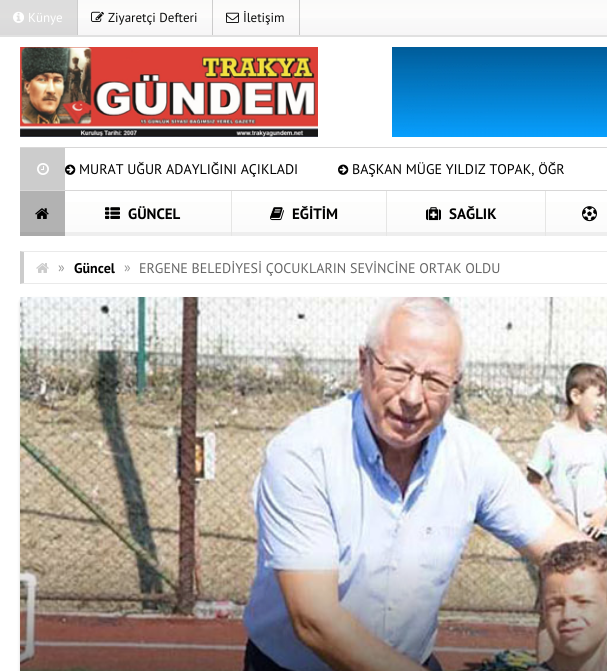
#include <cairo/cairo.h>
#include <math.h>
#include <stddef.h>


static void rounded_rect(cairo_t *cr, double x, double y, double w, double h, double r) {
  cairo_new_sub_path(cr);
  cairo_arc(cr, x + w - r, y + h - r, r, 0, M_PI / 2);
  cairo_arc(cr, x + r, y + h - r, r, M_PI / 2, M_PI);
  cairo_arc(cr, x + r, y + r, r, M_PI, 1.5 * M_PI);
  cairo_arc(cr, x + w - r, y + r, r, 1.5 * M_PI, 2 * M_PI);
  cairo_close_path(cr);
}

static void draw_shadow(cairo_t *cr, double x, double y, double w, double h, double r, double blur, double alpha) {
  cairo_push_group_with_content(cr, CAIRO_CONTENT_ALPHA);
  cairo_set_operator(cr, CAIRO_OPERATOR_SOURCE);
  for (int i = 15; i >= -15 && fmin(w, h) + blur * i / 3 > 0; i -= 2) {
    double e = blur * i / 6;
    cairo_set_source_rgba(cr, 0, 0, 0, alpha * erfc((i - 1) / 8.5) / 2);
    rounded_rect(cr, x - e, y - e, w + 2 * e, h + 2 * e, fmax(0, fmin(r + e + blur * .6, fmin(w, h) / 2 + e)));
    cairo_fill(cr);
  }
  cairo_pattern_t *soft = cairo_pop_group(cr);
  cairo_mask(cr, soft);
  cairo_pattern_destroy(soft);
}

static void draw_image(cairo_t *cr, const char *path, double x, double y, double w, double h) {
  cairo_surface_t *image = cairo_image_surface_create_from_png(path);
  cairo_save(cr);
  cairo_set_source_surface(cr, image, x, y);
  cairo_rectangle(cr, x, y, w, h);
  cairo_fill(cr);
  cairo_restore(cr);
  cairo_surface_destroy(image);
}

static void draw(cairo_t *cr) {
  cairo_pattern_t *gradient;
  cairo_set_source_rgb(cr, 1, 1, 1);
  cairo_paint(cr);
  gradient = cairo_pattern_create_linear(304, 35, 304, 0);
  cairo_pattern_add_color_stop_rgba(gradient, 0, 247 / 255.0, 246 / 255.0, 247 / 255.0, 1);
  cairo_pattern_add_color_stop_rgba(gradient, 0.5, 250 / 255.0, 250 / 255.0, 250 / 255.0, 1);
  cairo_pattern_add_color_stop_rgba(gradient, 0.5, 253 / 255.0, 252 / 255.0, 251 / 255.0, 1);
  cairo_pattern_add_color_stop_rgba(gradient, 1, 250 / 255.0, 250 / 255.0, 250 / 255.0, 1);
  cairo_set_source(cr, gradient);
  cairo_pattern_destroy(gradient);
  cairo_rectangle(cr, 0, 0, 607, 35);
  cairo_fill(cr);
  cairo_set_source_rgb(cr, 225 / 255.0, 225 / 255.0, 225 / 255.0);
  cairo_rectangle(cr, 0, 35, 607, 2);
  cairo_fill(cr);
  cairo_set_source_rgba(cr, 0, 0, 0, 0.18);
  cairo_rectangle(cr, 77, 0, 1, 35);
  cairo_fill(cr);
  cairo_set_source_rgba(cr, 0, 0, 0, 0.12);
  cairo_rectangle(cr, 0, 0, 77, 35);
  cairo_fill(cr);
  draw_image(cr, "images/1.png", 13, 11, 11, 12);
  cairo_set_source_rgba(cr, 0, 0, 0, 0.18);
  cairo_rectangle(cr, 212, 0, 1, 35);
  cairo_fill(cr);
  draw_image(cr, "images/2.png", 91, 11, 13, 11);
  cairo_rectangle(cr, 299, 0, 1, 35);
  cairo_fill(cr);
  draw_image(cr, "images/3.png", 226, 12, 13, 11);
  draw_image(cr, "images/4.png", 20, 47, 298, 90);
  draw_image(cr, "images/5.png", 392, 47, 215, 90);
  cairo_set_source_rgb(cr, 216 / 255.0, 215 / 255.0, 215 / 255.0);
  cairo_rectangle(cr, 20, 147, 587, 1);
  cairo_fill(cr);
  cairo_rectangle(cr, 20, 190, 587, 1);
  cairo_fill(cr);
  cairo_set_source_rgb(cr, 204 / 255.0, 204 / 255.0, 204 / 255.0);
  cairo_rectangle(cr, 20, 148, 45, 42);
  cairo_fill(cr);
  draw_image(cr, "images/6.png", 37, 163, 12, 12);
  draw_image(cr, "images/7.png", 65, 164, 11, 11);
  draw_image(cr, "images/7.png", 338, 164, 11, 11);
  gradient = cairo_pattern_create_linear(570, 236, 570, 191);
  cairo_pattern_add_color_stop_rgba(gradient, 0, 251 / 255.0, 251 / 255.0, 251 / 255.0, 1);
  cairo_pattern_add_color_stop_rgba(gradient, 0.5, 252 / 255.0, 252 / 255.0, 252 / 255.0, 1);
  cairo_pattern_add_color_stop_rgba(gradient, 0.5, 253 / 255.0, 253 / 255.0, 252 / 255.0, 1);
  cairo_pattern_add_color_stop_rgba(gradient, 1, 253 / 255.0, 253 / 255.0, 253 / 255.0, 1);
  cairo_set_source(cr, gradient);
  cairo_pattern_destroy(gradient);
  cairo_rectangle(cr, 65, 202, 542, 30);
  cairo_fill(cr);
  cairo_set_source_rgb(cr, 178 / 255.0, 178 / 255.0, 178 / 255.0);
  cairo_rectangle(cr, 20, 191, 45, 41);
  cairo_fill(cr);
  cairo_set_source_rgb(cr, 169 / 255.0, 169 / 255.0, 169 / 255.0);
  cairo_rectangle(cr, 20, 232, 45, 4);
  cairo_fill(cr);
  draw_image(cr, "images/8.png", 35, 208, 14, 11);
  cairo_set_source_rgb(cr, 238 / 255.0, 238 / 255.0, 238 / 255.0);
  cairo_rectangle(cr, 65, 232, 166, 4);
  cairo_fill(cr);
  cairo_set_source_rgb(cr, 230 / 255.0, 230 / 255.0, 229 / 255.0);
  cairo_rectangle(cr, 231, 191, 1, 45);
  cairo_fill(cr);
  draw_image(cr, "images/9.png", 105, 207, 15, 12);
  cairo_set_source_rgb(cr, 238 / 255.0, 238 / 255.0, 238 / 255.0);
  cairo_rectangle(cr, 232, 232, 154, 4);
  cairo_fill(cr);
  cairo_set_source_rgb(cr, 230 / 255.0, 230 / 255.0, 229 / 255.0);
  cairo_rectangle(cr, 386, 191, 1, 45);
  cairo_fill(cr);
  draw_image(cr, "images/10.png", 270, 207, 14, 14);
  cairo_set_source_rgb(cr, 238 / 255.0, 238 / 255.0, 238 / 255.0);
  cairo_rectangle(cr, 387, 232, 158, 4);
  cairo_fill(cr);
  cairo_set_source_rgb(cr, 230 / 255.0, 230 / 255.0, 229 / 255.0);
  cairo_rectangle(cr, 545, 191, 1, 45);
  cairo_fill(cr);
  draw_image(cr, "images/11.png", 426, 207, 15, 14);
  cairo_set_source_rgb(cr, 238 / 255.0, 238 / 255.0, 238 / 255.0);
  cairo_rectangle(cr, 546, 232, 61, 4);
  cairo_fill(cr);
  draw_image(cr, "images/12.png", 582, 206, 15, 16);
  cairo_set_source_rgb(cr, 234 / 255.0, 234 / 255.0, 234 / 255.0);
  cairo_new_path(cr);
  cairo_move_to(cr, 20, 251);
  cairo_line_to(cr, 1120, 251);
  cairo_line_to(cr, 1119, 252);
  cairo_line_to(cr, 24, 252);
  cairo_close_path(cr);
  cairo_fill(cr);
  cairo_new_path(cr);
  cairo_move_to(cr, 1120, 284);
  cairo_line_to(cr, 20, 284);
  cairo_line_to(cr, 24, 283);
  cairo_line_to(cr, 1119, 283);
  cairo_close_path(cr);
  cairo_fill(cr);
  cairo_set_source_rgb(cr, 204 / 255.0, 204 / 255.0, 204 / 255.0);
  cairo_new_path(cr);
  cairo_move_to(cr, 20, 284);
  cairo_line_to(cr, 20, 251);
  cairo_line_to(cr, 24, 252);
  cairo_line_to(cr, 24, 283);
  cairo_close_path(cr);
  cairo_fill(cr);
  draw_image(cr, "images/13.png", 36, 263, 13, 10);
  cairo_set_source_rgb(cr, 0, 0, 0);
  draw_shadow(cr, 20, 299, 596, 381, 4, 1.5, 0.15);
  draw_image(cr, "images/14.png", 20, 297, 587, 374);
  cairo_select_font_face(cr, "PT Sans", CAIRO_FONT_SLANT_NORMAL, CAIRO_FONT_WEIGHT_NORMAL);
  cairo_set_font_size(cr, 13);
  cairo_set_source_rgb(cr, 1, 1, 1);
  cairo_move_to(cr, 28, 22);
  cairo_show_text(cr, "Künye");
  cairo_set_source_rgb(cr, 10 / 255.0, 10 / 255.0, 10 / 255.0);
  cairo_move_to(cr, 108, 22);
  cairo_show_text(cr, "Ziyaretçi Defteri");
  cairo_move_to(cr, 243, 22);
  cairo_show_text(cr, "İletişim");
  cairo_set_font_size(cr, 14);
  cairo_set_source_rgb(cr, 0, 0, 0);
  cairo_move_to(cr, 79, 174);
  cairo_show_text(cr, "MURAT UĞUR ADAYLIĞINI AÇIKLADI");
  cairo_move_to(cr, 352, 174);
  cairo_show_text(cr, "BAŞKAN MÜGE YILDIZ TOPAK, ÖĞR");
  cairo_select_font_face(cr, "PT Sans", CAIRO_FONT_SLANT_NORMAL, CAIRO_FONT_WEIGHT_BOLD);
  cairo_set_font_size(cr, 15);
  cairo_move_to(cr, 128, 219);
  cairo_show_text(cr, "GÜNCEL");
  cairo_move_to(cr, 292, 219);
  cairo_show_text(cr, "EĞİTİM");
  cairo_move_to(cr, 449, 219);
  cairo_show_text(cr, "SAĞLIK");
  cairo_select_font_face(cr, "PT Sans", CAIRO_FONT_SLANT_NORMAL, CAIRO_FONT_WEIGHT_NORMAL);
  cairo_set_font_size(cr, 14);
  cairo_set_source_rgb(cr, 153 / 255.0, 153 / 255.0, 153 / 255.0);
  cairo_move_to(cr, 58, 272);
  cairo_show_text(cr, "»");
  cairo_select_font_face(cr, "PT Sans", CAIRO_FONT_SLANT_NORMAL, CAIRO_FONT_WEIGHT_BOLD);
  cairo_set_source_rgb(cr, 0, 0, 0);
  cairo_move_to(cr, 74, 273);
  cairo_show_text(cr, "Güncel");
  cairo_select_font_face(cr, "PT Sans", CAIRO_FONT_SLANT_NORMAL, CAIRO_FONT_WEIGHT_NORMAL);
  cairo_set_source_rgb(cr, 153 / 255.0, 153 / 255.0, 153 / 255.0);
  cairo_move_to(cr, 124, 272);
  cairo_show_text(cr, "»");
  cairo_set_source_rgb(cr, 102 / 255.0, 102 / 255.0, 102 / 255.0);
  cairo_move_to(cr, 139, 273);
  cairo_show_text(cr, "ERGENE BELEDİYESİ ÇOCUKLARIN SEVİNCİNE ORTAK OLDU");
}

int main(void) {
  cairo_surface_t *surface = cairo_image_surface_create(CAIRO_FORMAT_RGB24, 607, 671);
  cairo_t *cr = cairo_create(surface);
  cairo_font_options_t *options = cairo_font_options_create();
  cairo_font_options_set_hint_metrics(options, CAIRO_HINT_METRICS_OFF);
  cairo_font_options_set_hint_style(options, CAIRO_HINT_STYLE_NONE);
  cairo_set_font_options(cr, options);
  cairo_set_miter_limit(cr, 4);
  draw(cr);
  cairo_surface_write_to_png(surface, "out.png");
  cairo_font_options_destroy(options);
  cairo_destroy(cr);
  cairo_surface_destroy(surface);
  return 0;
}
